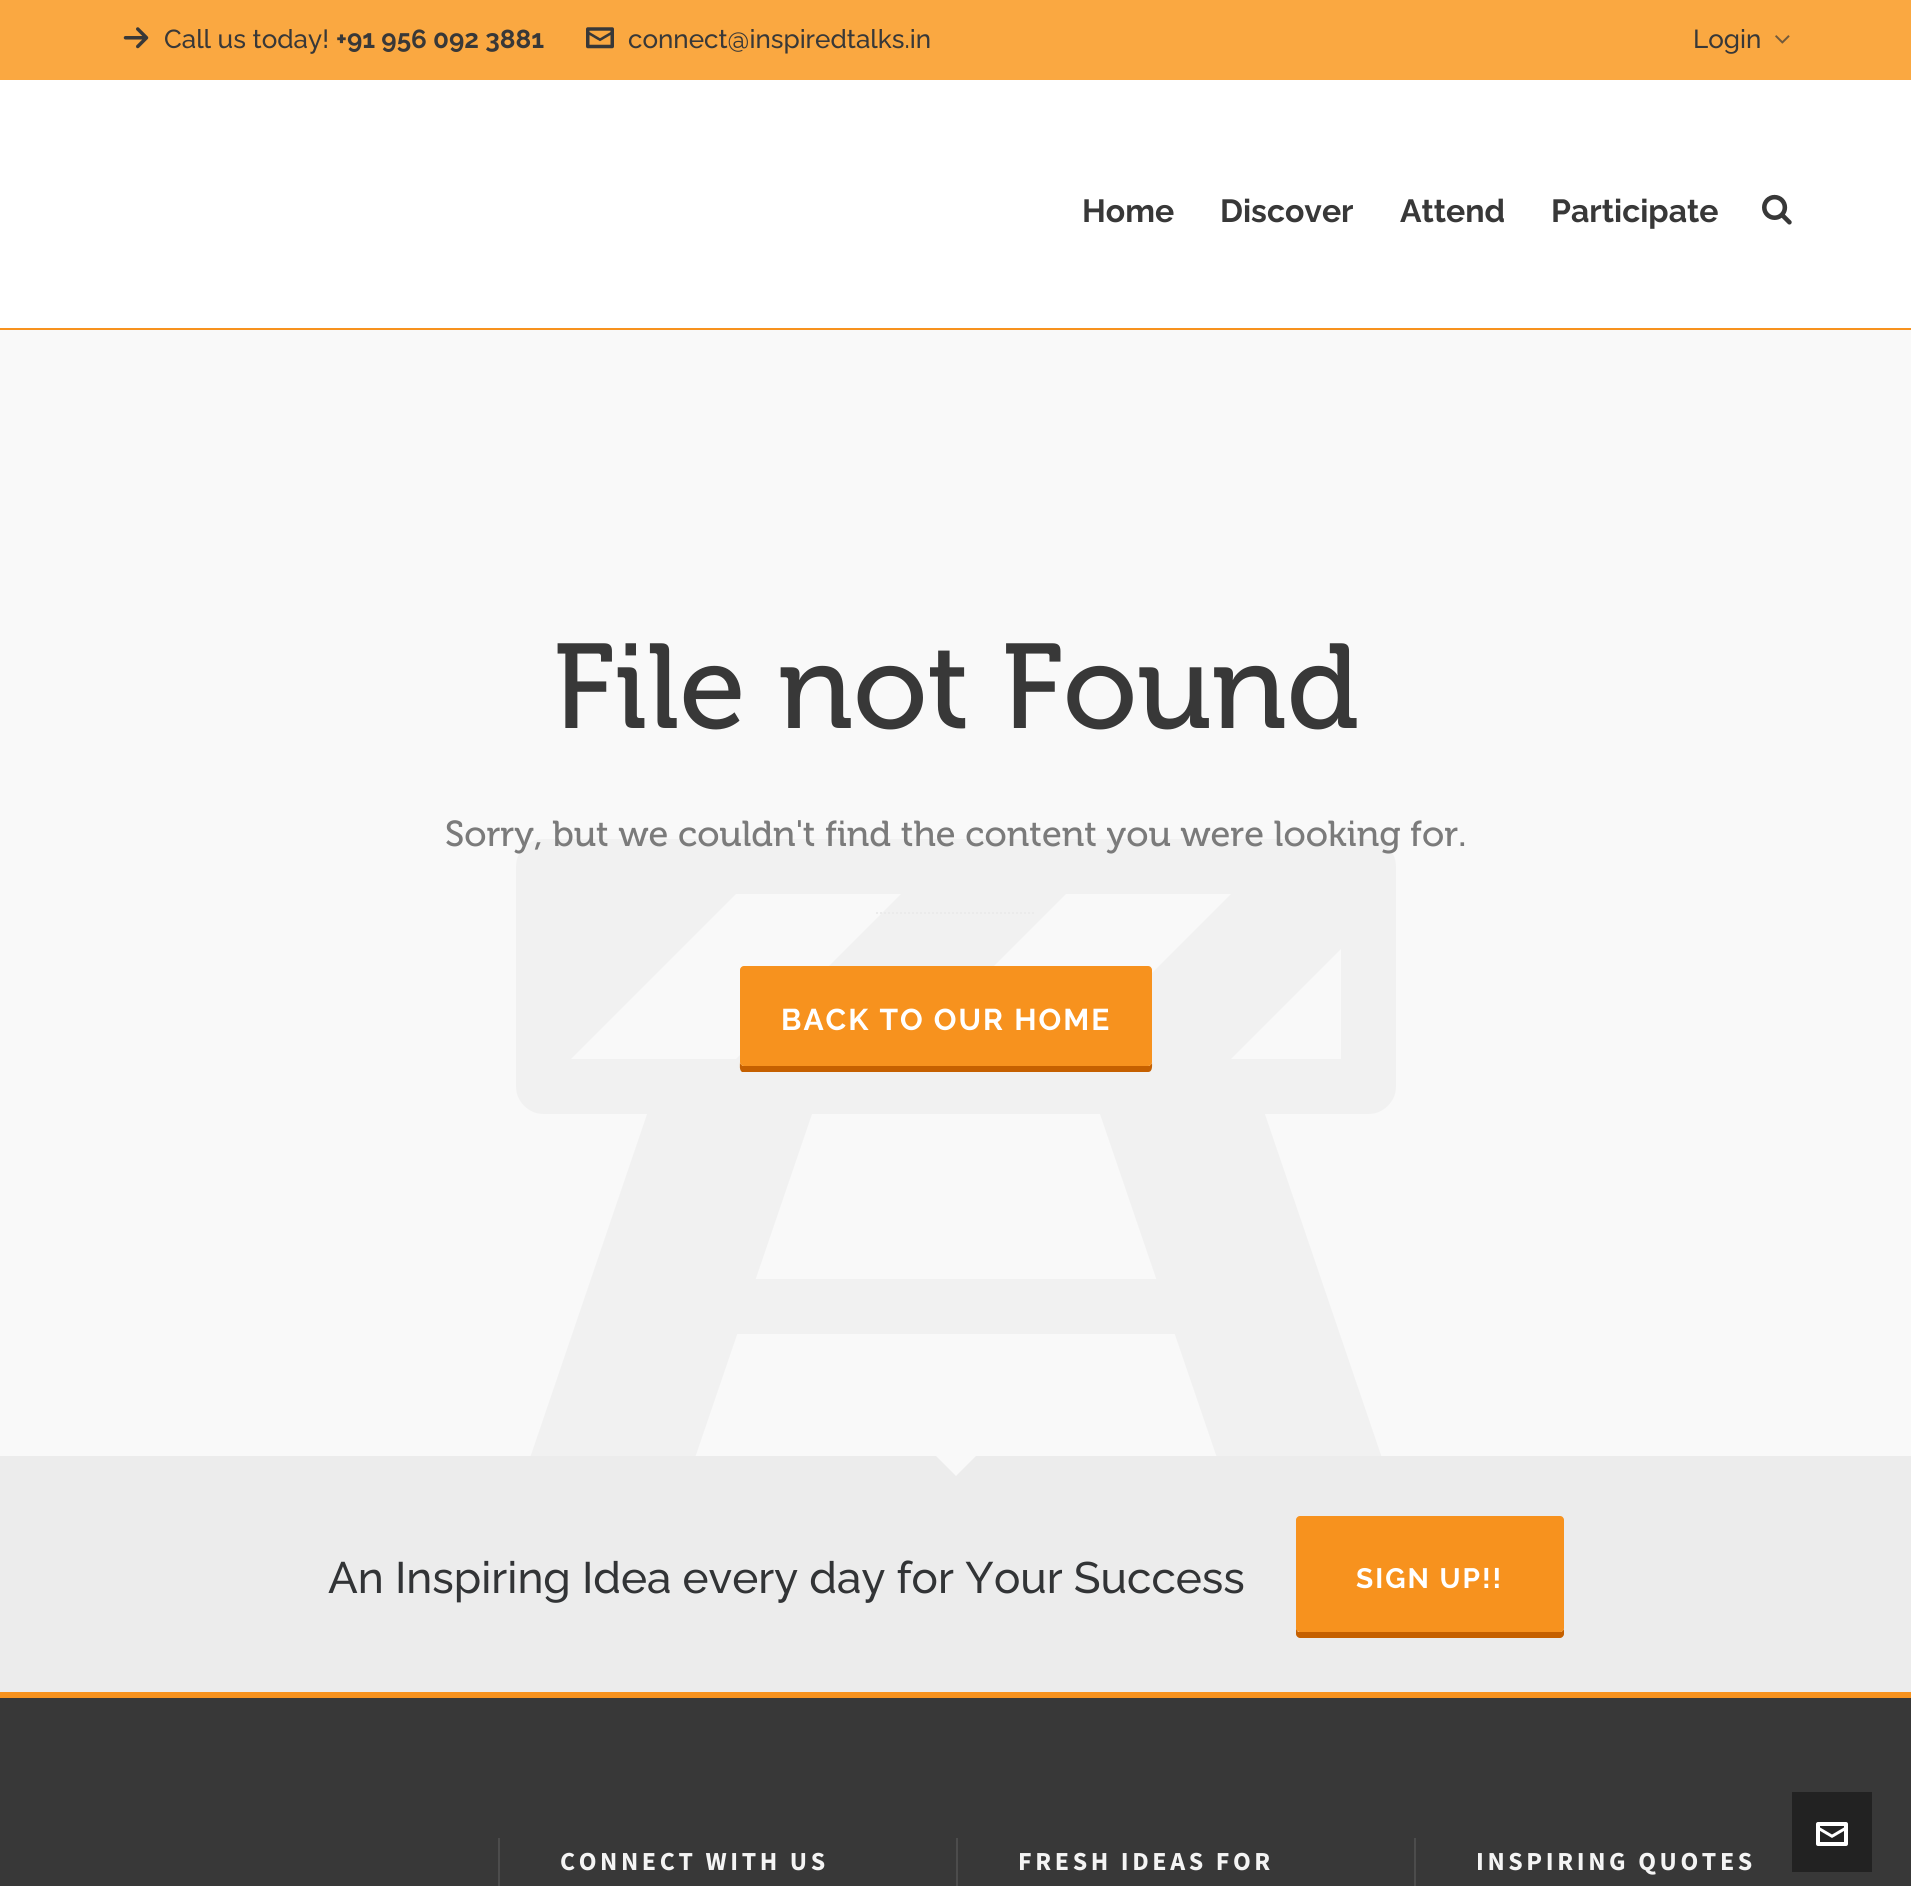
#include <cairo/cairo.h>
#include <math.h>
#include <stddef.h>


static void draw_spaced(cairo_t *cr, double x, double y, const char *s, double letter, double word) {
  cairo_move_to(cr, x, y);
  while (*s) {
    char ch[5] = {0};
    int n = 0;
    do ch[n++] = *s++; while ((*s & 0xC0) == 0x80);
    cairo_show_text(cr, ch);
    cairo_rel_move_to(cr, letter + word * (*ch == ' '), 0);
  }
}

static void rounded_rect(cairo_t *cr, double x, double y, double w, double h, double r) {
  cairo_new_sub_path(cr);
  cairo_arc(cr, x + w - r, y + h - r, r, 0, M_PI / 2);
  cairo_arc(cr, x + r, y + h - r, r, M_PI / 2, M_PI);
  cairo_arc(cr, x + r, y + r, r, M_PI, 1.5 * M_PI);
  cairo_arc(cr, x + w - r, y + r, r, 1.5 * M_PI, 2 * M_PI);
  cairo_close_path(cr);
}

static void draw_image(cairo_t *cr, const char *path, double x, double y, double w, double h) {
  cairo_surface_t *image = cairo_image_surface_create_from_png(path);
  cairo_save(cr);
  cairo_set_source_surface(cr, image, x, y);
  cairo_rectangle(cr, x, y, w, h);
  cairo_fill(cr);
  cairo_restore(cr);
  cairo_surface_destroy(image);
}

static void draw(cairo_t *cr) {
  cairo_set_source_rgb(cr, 249 / 255.0, 249 / 255.0, 249 / 255.0);
  cairo_paint(cr);
  cairo_set_source_rgb(cr, 250 / 255.0, 168 / 255.0, 65 / 255.0);
  cairo_rectangle(cr, 0, 0, 1911, 80);
  cairo_fill(cr);
  draw_image(cr, "images/1.png", 123, 27, 26, 22);
  draw_image(cr, "images/2.png", 586, 27, 28, 22);
  draw_image(cr, "images/3.png", 1775, 35, 15, 9);
  cairo_set_source_rgb(cr, 1, 1, 1);
  cairo_rectangle(cr, 0, 80, 1911, 248);
  cairo_fill(cr);
  cairo_set_source_rgb(cr, 247 / 255.0, 146 / 255.0, 30 / 255.0);
  cairo_rectangle(cr, 0, 328, 1911, 2);
  cairo_fill(cr);
  draw_image(cr, "images/4.png", 1762, 194, 30, 31);
  cairo_set_source_rgb(cr, 236 / 255.0, 236 / 255.0, 236 / 255.0);
  cairo_rectangle(cr, 0, 1456, 1911, 236);
  cairo_fill(cr);
  cairo_set_source_rgb(cr, 249 / 255.0, 249 / 255.0, 249 / 255.0);
  cairo_new_path(cr);
  cairo_move_to(cr, 934, 1454);
  cairo_line_to(cr, 978, 1454);
  cairo_line_to(cr, 956, 1476);
  cairo_close_path(cr);
  cairo_fill(cr);
  draw_image(cr, "images/5.png", 516, 839, 880, 617);
  cairo_new_path(cr);
  cairo_move_to(cr, 876, 913);
  cairo_line_to(cr, 1036, 913);
  cairo_set_source_rgb(cr, 235 / 255.0, 235 / 255.0, 235 / 255.0);
  cairo_set_dash(cr, (double[]){2, 2}, 2, 0);
  cairo_stroke(cr);
  cairo_set_source_rgb(cr, 197 / 255.0, 96 / 255.0, 0);
  cairo_new_path(cr);
  cairo_move_to(cr, 740, 1062);
  cairo_curve_to(cr, 740, 1065, 739, 1070, 742, 1072);
  cairo_line_to(cr, 1148, 1072);
  cairo_curve_to(cr, 1153, 1072, 1152, 1065, 1152, 1062);
  cairo_curve_to(cr, 1152, 1064, 1150, 1066, 1148, 1066);
  cairo_line_to(cr, 744, 1066);
  cairo_curve_to(cr, 742, 1066, 740, 1064, 740, 1062);
  cairo_close_path(cr);
  cairo_fill(cr);
  cairo_set_source_rgb(cr, 247 / 255.0, 146 / 255.0, 30 / 255.0);
  rounded_rect(cr, 740, 966, 412, 100, 4);
  cairo_fill(cr);
  cairo_rectangle(cr, 0, 1692, 1911, 6);
  cairo_fill(cr);
  cairo_set_source_rgb(cr, 197 / 255.0, 96 / 255.0, 0);
  cairo_new_path(cr);
  cairo_move_to(cr, 1296, 1628);
  cairo_line_to(cr, 1296, 1634);
  cairo_curve_to(cr, 1296, 1636, 1298, 1638, 1300, 1638);
  cairo_line_to(cr, 1560, 1638);
  cairo_curve_to(cr, 1562, 1638, 1564, 1636, 1564, 1634);
  cairo_line_to(cr, 1564, 1628);
  cairo_curve_to(cr, 1564, 1630, 1562, 1632, 1560, 1632);
  cairo_line_to(cr, 1298, 1632);
  cairo_line_to(cr, 1297, 1630);
  cairo_close_path(cr);
  cairo_fill(cr);
  cairo_set_source_rgb(cr, 247 / 255.0, 146 / 255.0, 30 / 255.0);
  rounded_rect(cr, 1296, 1516, 268, 116, 4);
  cairo_fill(cr);
  cairo_set_source_rgb(cr, 56 / 255.0, 56 / 255.0, 56 / 255.0);
  cairo_rectangle(cr, 0, 1698, 1911, 188);
  cairo_fill(cr);
  cairo_set_source_rgb(cr, 76 / 255.0, 76 / 255.0, 76 / 255.0);
  cairo_rectangle(cr, 498, 1838, 2, 48);
  cairo_fill(cr);
  cairo_rectangle(cr, 956, 1838, 2, 48);
  cairo_fill(cr);
  cairo_rectangle(cr, 1414, 1838, 2, 48);
  cairo_fill(cr);
  cairo_set_source_rgb(cr, 34 / 255.0, 34 / 255.0, 34 / 255.0);
  cairo_rectangle(cr, 1792, 1792, 80, 80);
  cairo_fill(cr);
  draw_image(cr, "images/6.png", 1816, 1822, 32, 24);
  cairo_select_font_face(cr, "Raleway Medium", CAIRO_FONT_SLANT_NORMAL, CAIRO_FONT_WEIGHT_NORMAL);
  cairo_set_font_size(cr, 26);
  cairo_set_source_rgb(cr, 56 / 255.0, 56 / 255.0, 56 / 255.0);
  cairo_move_to(cr, 164, 48);
  cairo_show_text(cr, "Call us today!");
  cairo_select_font_face(cr, "Raleway", CAIRO_FONT_SLANT_NORMAL, CAIRO_FONT_WEIGHT_BOLD);
  cairo_move_to(cr, 336, 48);
  cairo_show_text(cr, "+91 956 092 3881");
  cairo_select_font_face(cr, "Raleway Medium", CAIRO_FONT_SLANT_NORMAL, CAIRO_FONT_WEIGHT_NORMAL);
  cairo_move_to(cr, 628, 48);
  cairo_show_text(cr, "connect@inspiredtalks.in");
  cairo_move_to(cr, 1693, 48);
  cairo_show_text(cr, "Login");
  cairo_select_font_face(cr, "Raleway", CAIRO_FONT_SLANT_NORMAL, CAIRO_FONT_WEIGHT_BOLD);
  cairo_set_font_size(cr, 32);
  cairo_move_to(cr, 1082, 222);
  cairo_show_text(cr, "Home");
  cairo_move_to(cr, 1220, 222);
  cairo_show_text(cr, "Discover");
  cairo_move_to(cr, 1400, 222);
  cairo_show_text(cr, "Attend");
  cairo_move_to(cr, 1551, 222);
  cairo_show_text(cr, "Participate");
  cairo_select_font_face(cr, "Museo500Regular", CAIRO_FONT_SLANT_NORMAL, CAIRO_FONT_WEIGHT_NORMAL);
  cairo_set_font_size(cr, 120);
  cairo_move_to(cr, 553, 728);
  cairo_show_text(cr, "File not Found");
  cairo_set_font_size(cr, 36);
  cairo_set_source_rgb(cr, 123 / 255.0, 123 / 255.0, 123 / 255.0);
  cairo_move_to(cr, 445, 846);
  cairo_show_text(cr, "Sorry, but we couldn't find the content you were looking for.");
  cairo_select_font_face(cr, "Raleway", CAIRO_FONT_SLANT_NORMAL, CAIRO_FONT_WEIGHT_BOLD);
  cairo_set_font_size(cr, 30);
  cairo_set_source_rgb(cr, 1, 1, 1);
  draw_spaced(cr, 781, 1030, "BACK TO OUR HOME", 2, 0);
  cairo_select_font_face(cr, "Raleway Medium", CAIRO_FONT_SLANT_NORMAL, CAIRO_FONT_WEIGHT_NORMAL);
  cairo_set_font_size(cr, 44);
  cairo_set_source_rgb(cr, 50 / 255.0, 52 / 255.0, 54 / 255.0);
  cairo_move_to(cr, 328, 1593);
  cairo_show_text(cr, "An Inspiring Idea every day for Your Success");
  cairo_select_font_face(cr, "Raleway", CAIRO_FONT_SLANT_NORMAL, CAIRO_FONT_WEIGHT_BOLD);
  cairo_set_font_size(cr, 28);
  cairo_set_source_rgb(cr, 1, 1, 1);
  draw_spaced(cr, 1356, 1588, "SIGN UP!!", 2, 0);
  cairo_select_font_face(cr, "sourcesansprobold", CAIRO_FONT_SLANT_NORMAL, CAIRO_FONT_WEIGHT_BOLD);
  cairo_set_font_size(cr, 26);
  cairo_set_source_rgb(cr, 244 / 255.0, 244 / 255.0, 244 / 255.0);
  draw_spaced(cr, 560, 1870, "CONNECT WITH US", 3.6, 0);
  draw_spaced(cr, 1018, 1870, "FRESH IDEAS FOR", 3.6, 0);
  draw_spaced(cr, 1476, 1870, "INSPIRING QUOTES", 3.6, 0);
}

int main(void) {
  cairo_surface_t *surface = cairo_image_surface_create(CAIRO_FORMAT_RGB24, 1911, 1886);
  cairo_t *cr = cairo_create(surface);
  cairo_font_options_t *options = cairo_font_options_create();
  cairo_font_options_set_hint_metrics(options, CAIRO_HINT_METRICS_OFF);
  cairo_font_options_set_hint_style(options, CAIRO_HINT_STYLE_NONE);
  cairo_set_font_options(cr, options);
  cairo_set_miter_limit(cr, 4);
  draw(cr);
  cairo_surface_write_to_png(surface, "out.png");
  cairo_font_options_destroy(options);
  cairo_destroy(cr);
  cairo_surface_destroy(surface);
  return 0;
}
